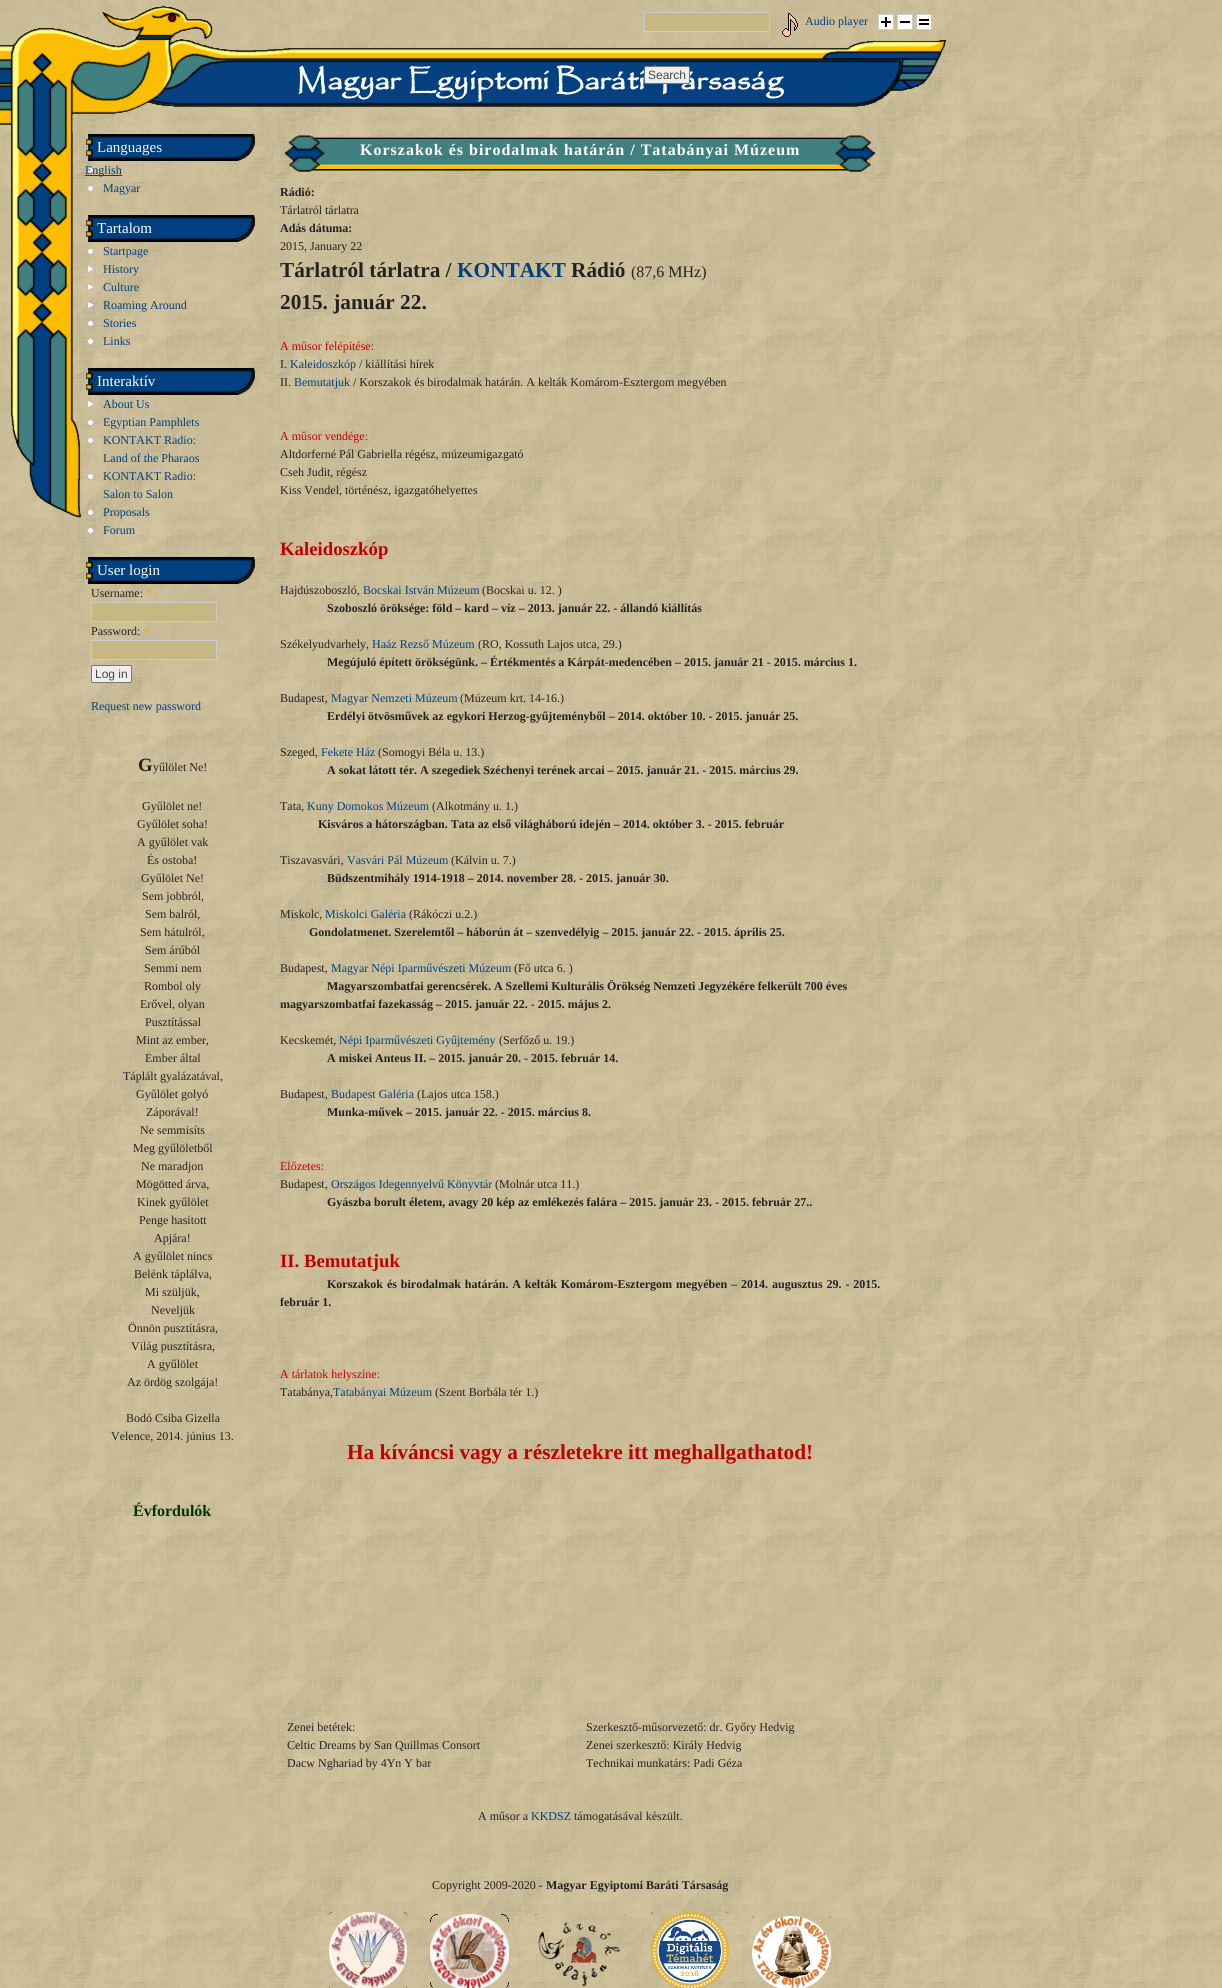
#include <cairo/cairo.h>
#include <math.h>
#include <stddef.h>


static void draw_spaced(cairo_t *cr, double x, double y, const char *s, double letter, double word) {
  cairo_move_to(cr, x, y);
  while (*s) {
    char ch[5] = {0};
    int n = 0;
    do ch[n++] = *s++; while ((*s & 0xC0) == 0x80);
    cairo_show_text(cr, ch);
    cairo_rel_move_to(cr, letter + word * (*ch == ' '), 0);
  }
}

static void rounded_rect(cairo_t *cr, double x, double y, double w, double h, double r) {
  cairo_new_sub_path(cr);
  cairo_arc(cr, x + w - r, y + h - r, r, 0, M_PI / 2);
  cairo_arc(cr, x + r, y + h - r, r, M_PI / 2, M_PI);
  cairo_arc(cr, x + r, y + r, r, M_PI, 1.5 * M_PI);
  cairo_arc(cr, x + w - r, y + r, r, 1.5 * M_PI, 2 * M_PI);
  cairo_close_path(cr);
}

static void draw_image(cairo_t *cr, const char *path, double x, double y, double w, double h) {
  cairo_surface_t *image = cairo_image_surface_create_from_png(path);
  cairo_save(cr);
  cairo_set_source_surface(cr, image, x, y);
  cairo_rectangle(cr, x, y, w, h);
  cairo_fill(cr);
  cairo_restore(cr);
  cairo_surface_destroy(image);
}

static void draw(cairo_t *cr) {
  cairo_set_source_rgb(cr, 1, 1, 1);
  cairo_paint(cr);
  draw_image(cr, "images/1.png", 0, 0, 1222, 1988);
  draw_image(cr, "images/2.png", 0, 6, 947, 128);
  draw_image(cr, "images/3.png", 782, 13, 16, 24);
  draw_image(cr, "images/4.png", 878, 14, 16, 16);
  draw_image(cr, "images/5.png", 897, 14, 16, 16);
  draw_image(cr, "images/6.png", 916, 14, 16, 16);
  cairo_set_source_rgb(cr, 197 / 255.0, 184 / 255.0, 131 / 255.0);
  cairo_rectangle(cr, 644.5, 12.5, 125, 19);
  cairo_fill_preserve(cr);
  cairo_set_source_rgb(cr, 204 / 255.0, 204 / 255.0, 204 / 255.0);
  cairo_set_line_width(cr, 1);
  cairo_stroke(cr);
  cairo_set_source_rgb(cr, 239 / 255.0, 239 / 255.0, 239 / 255.0);
  rounded_rect(cr, 644.5, 66.5, 45, 17, 1.5);
  cairo_fill_preserve(cr);
  cairo_set_source_rgb(cr, 118 / 255.0, 118 / 255.0, 118 / 255.0);
  cairo_stroke(cr);
  draw_image(cr, "images/7.png", 10, 134, 72, 384);
  draw_image(cr, "images/8.png", 86, 134, 169, 27);
  draw_image(cr, "images/9.png", 87, 167, 7, 7);
  cairo_set_source_rgb(cr, 0, 64 / 255.0, 128 / 255.0);
  cairo_rectangle(cr, 85, 175, 37, 1);
  cairo_fill(cr);
  draw_image(cr, "images/10.png", 87, 185, 7, 7);
  draw_image(cr, "images/11.png", 86, 215, 169, 27);
  draw_image(cr, "images/12.png", 87, 248, 7, 7);
  draw_image(cr, "images/13.png", 87, 265, 7, 8);
  draw_image(cr, "images/14.png", 87, 283, 7, 8);
  draw_image(cr, "images/15.png", 87, 301, 7, 8);
  draw_image(cr, "images/16.png", 87, 320, 7, 7);
  draw_image(cr, "images/17.png", 87, 338, 7, 7);
  draw_image(cr, "images/18.png", 86, 368, 169, 27);
  draw_image(cr, "images/19.png", 87, 400, 7, 8);
  draw_image(cr, "images/20.png", 87, 419, 7, 7);
  draw_image(cr, "images/21.png", 87, 437, 7, 7);
  draw_image(cr, "images/22.png", 87, 473, 7, 7);
  draw_image(cr, "images/23.png", 87, 509, 7, 7);
  draw_image(cr, "images/24.png", 87, 527, 7, 7);
  draw_image(cr, "images/25.png", 86, 557, 169, 27);
  cairo_set_source_rgb(cr, 197 / 255.0, 184 / 255.0, 131 / 255.0);
  cairo_rectangle(cr, 91.5, 602.5, 125, 19);
  cairo_fill_preserve(cr);
  cairo_set_source_rgb(cr, 204 / 255.0, 204 / 255.0, 204 / 255.0);
  cairo_stroke(cr);
  cairo_set_source_rgb(cr, 197 / 255.0, 184 / 255.0, 131 / 255.0);
  cairo_rectangle(cr, 91.5, 640.5, 125, 19);
  cairo_fill_preserve(cr);
  cairo_set_source_rgb(cr, 204 / 255.0, 204 / 255.0, 204 / 255.0);
  cairo_stroke(cr);
  cairo_set_source_rgb(cr, 239 / 255.0, 239 / 255.0, 239 / 255.0);
  rounded_rect(cr, 91.5, 665.5, 40, 17, 1.5);
  cairo_fill_preserve(cr);
  cairo_set_source_rgb(cr, 118 / 255.0, 118 / 255.0, 118 / 255.0);
  cairo_stroke(cr);
  draw_image(cr, "images/26.png", 285, 135, 590, 37);
  draw_image(cr, "images/27.png", 329, 1912, 78, 76);
  draw_image(cr, "images/28.png", 430, 1914, 79, 74);
  draw_image(cr, "images/29.png", 535, 1914, 90, 73);
  draw_image(cr, "images/30.png", 651, 1912, 78, 76);
  draw_image(cr, "images/31.png", 752, 1916, 79, 72);
  cairo_select_font_face(cr, "Liberation Serif", CAIRO_FONT_SLANT_NORMAL, CAIRO_FONT_WEIGHT_NORMAL);
  cairo_set_font_size(cr, 12);
  cairo_set_source_rgb(cr, 0, 64 / 255.0, 128 / 255.0);
  cairo_move_to(cr, 805, 25);
  cairo_show_text(cr, "Audio player");
  cairo_select_font_face(cr, "Liberation Sans", CAIRO_FONT_SLANT_NORMAL, CAIRO_FONT_WEIGHT_NORMAL);
  cairo_set_source_rgb(cr, 73 / 255.0, 73 / 255.0, 73 / 255.0);
  cairo_move_to(cr, 648, 79);
  cairo_show_text(cr, "Search");
  cairo_select_font_face(cr, "Liberation Serif", CAIRO_FONT_SLANT_NORMAL, CAIRO_FONT_WEIGHT_NORMAL);
  cairo_set_font_size(cr, 15);
  cairo_set_source_rgb(cr, 1, 1, 1);
  cairo_move_to(cr, 97, 152);
  cairo_show_text(cr, "Languages");
  cairo_set_font_size(cr, 12);
  cairo_set_source_rgb(cr, 0, 64 / 255.0, 128 / 255.0);
  cairo_move_to(cr, 85, 174);
  cairo_show_text(cr, "English");
  cairo_move_to(cr, 103, 192);
  cairo_show_text(cr, "Magyar");
  cairo_set_font_size(cr, 15);
  cairo_set_source_rgb(cr, 1, 1, 1);
  cairo_move_to(cr, 97, 233);
  cairo_show_text(cr, "Tartalom");
  cairo_set_font_size(cr, 12);
  cairo_set_source_rgb(cr, 0, 64 / 255.0, 128 / 255.0);
  cairo_move_to(cr, 103, 255);
  cairo_show_text(cr, "Startpage");
  cairo_move_to(cr, 103, 273);
  cairo_show_text(cr, "History");
  cairo_move_to(cr, 103, 291);
  cairo_show_text(cr, "Culture");
  cairo_move_to(cr, 103, 309);
  cairo_show_text(cr, "Roaming Around");
  cairo_move_to(cr, 103, 327);
  cairo_show_text(cr, "Stories");
  cairo_move_to(cr, 103, 345);
  cairo_show_text(cr, "Links");
  cairo_set_font_size(cr, 15);
  cairo_set_source_rgb(cr, 1, 1, 1);
  cairo_move_to(cr, 97, 386);
  cairo_show_text(cr, "Interaktív");
  cairo_set_font_size(cr, 12);
  cairo_set_source_rgb(cr, 0, 64 / 255.0, 128 / 255.0);
  cairo_move_to(cr, 103, 408);
  cairo_show_text(cr, "About Us");
  cairo_move_to(cr, 103, 426);
  cairo_show_text(cr, "Egyptian Pamphlets");
  cairo_move_to(cr, 103, 444);
  cairo_show_text(cr, "KONTAKT Radio:");
  cairo_move_to(cr, 103, 462);
  cairo_show_text(cr, "Land of the Pharaos");
  cairo_move_to(cr, 103, 480);
  cairo_show_text(cr, "KONTAKT Radio:");
  cairo_move_to(cr, 103, 498);
  cairo_show_text(cr, "Salon to Salon");
  cairo_move_to(cr, 103, 516);
  cairo_show_text(cr, "Proposals");
  cairo_move_to(cr, 103, 534);
  cairo_show_text(cr, "Forum");
  cairo_set_font_size(cr, 15);
  cairo_set_source_rgb(cr, 1, 1, 1);
  cairo_move_to(cr, 97, 575);
  cairo_show_text(cr, "User login");
  cairo_set_font_size(cr, 12);
  cairo_set_source_rgb(cr, 34 / 255.0, 34 / 255.0, 34 / 255.0);
  cairo_move_to(cr, 91, 597);
  cairo_show_text(cr, "Username:");
  cairo_set_source_rgb(cr, 1, 174 / 255.0, 0);
  cairo_move_to(cr, 146, 597);
  cairo_show_text(cr, "*");
  cairo_set_source_rgb(cr, 34 / 255.0, 34 / 255.0, 34 / 255.0);
  cairo_move_to(cr, 91, 635);
  cairo_show_text(cr, "Password:");
  cairo_set_source_rgb(cr, 1, 174 / 255.0, 0);
  cairo_move_to(cr, 143, 635);
  cairo_show_text(cr, "*");
  cairo_select_font_face(cr, "Liberation Sans", CAIRO_FONT_SLANT_NORMAL, CAIRO_FONT_WEIGHT_NORMAL);
  cairo_set_source_rgb(cr, 73 / 255.0, 73 / 255.0, 73 / 255.0);
  cairo_move_to(cr, 95, 678);
  cairo_show_text(cr, "Log in");
  cairo_select_font_face(cr, "Liberation Serif", CAIRO_FONT_SLANT_NORMAL, CAIRO_FONT_WEIGHT_NORMAL);
  cairo_set_source_rgb(cr, 0, 64 / 255.0, 128 / 255.0);
  cairo_move_to(cr, 91, 710);
  cairo_show_text(cr, "Request new password");
  cairo_select_font_face(cr, "Liberation Serif", CAIRO_FONT_SLANT_NORMAL, CAIRO_FONT_WEIGHT_BOLD);
  cairo_set_font_size(cr, 18.75);
  cairo_set_source_rgb(cr, 34 / 255.0, 34 / 255.0, 34 / 255.0);
  cairo_move_to(cr, 138, 771);
  cairo_show_text(cr, "G");
  cairo_select_font_face(cr, "Liberation Serif", CAIRO_FONT_SLANT_NORMAL, CAIRO_FONT_WEIGHT_NORMAL);
  cairo_set_font_size(cr, 12);
  cairo_move_to(cr, 153, 771);
  cairo_show_text(cr, "yűlölet Ne!");
  cairo_move_to(cr, 142, 810);
  cairo_show_text(cr, "Gyűlölet ne!");
  cairo_move_to(cr, 137, 828);
  cairo_show_text(cr, "Gyűlölet soha!");
  cairo_move_to(cr, 137, 846);
  cairo_show_text(cr, "A gyűlölet vak");
  cairo_move_to(cr, 147, 864);
  cairo_show_text(cr, "És ostoba!");
  cairo_move_to(cr, 141, 882);
  cairo_show_text(cr, "Gyűlölet Ne!");
  cairo_move_to(cr, 142, 900);
  cairo_show_text(cr, "Sem jobbról,");
  cairo_move_to(cr, 145, 918);
  cairo_show_text(cr, "Sem balról,");
  cairo_move_to(cr, 140, 936);
  cairo_show_text(cr, "Sem hátulról,");
  cairo_move_to(cr, 145, 954);
  cairo_show_text(cr, "Sem árúból");
  cairo_move_to(cr, 144, 972);
  cairo_show_text(cr, "Semmi nem");
  cairo_move_to(cr, 144, 990);
  cairo_show_text(cr, "Rombol oly");
  cairo_move_to(cr, 140, 1008);
  cairo_show_text(cr, "Erővel, olyan");
  cairo_move_to(cr, 145, 1026);
  cairo_show_text(cr, "Pusztítással");
  cairo_move_to(cr, 136, 1044);
  cairo_show_text(cr, "Mint az ember,");
  cairo_move_to(cr, 145, 1062);
  cairo_show_text(cr, "Ember által");
  cairo_move_to(cr, 123, 1080);
  cairo_show_text(cr, "Táplált gyalázatával,");
  cairo_move_to(cr, 136, 1098);
  cairo_show_text(cr, "Gyűlölet golyó");
  cairo_move_to(cr, 146, 1116);
  cairo_show_text(cr, "Záporával!");
  cairo_move_to(cr, 140, 1134);
  cairo_show_text(cr, "Ne semmisíts");
  cairo_move_to(cr, 133, 1152);
  cairo_show_text(cr, "Meg gyűlöletből");
  cairo_move_to(cr, 141, 1170);
  cairo_show_text(cr, "Ne maradjon");
  cairo_move_to(cr, 136, 1188);
  cairo_show_text(cr, "Mögötted árva,");
  cairo_move_to(cr, 137, 1206);
  cairo_show_text(cr, "Kinek gyűlölet");
  cairo_move_to(cr, 139, 1224);
  cairo_show_text(cr, "Penge hasított");
  cairo_move_to(cr, 154, 1242);
  cairo_show_text(cr, "Apjára!");
  cairo_move_to(cr, 133, 1260);
  cairo_show_text(cr, "A gyűlölet nincs");
  cairo_move_to(cr, 134, 1278);
  cairo_show_text(cr, "Belénk táplálva,");
  cairo_move_to(cr, 145, 1296);
  cairo_show_text(cr, "Mi szüljük,");
  cairo_move_to(cr, 151, 1314);
  cairo_show_text(cr, "Neveljük");
  cairo_move_to(cr, 128, 1332);
  cairo_show_text(cr, "Önnön pusztításra,");
  cairo_move_to(cr, 131, 1350);
  cairo_show_text(cr, "Világ pusztításra,");
  cairo_move_to(cr, 147, 1368);
  cairo_show_text(cr, "A gyűlölet");
  cairo_move_to(cr, 127, 1386);
  cairo_show_text(cr, "Az ördög szolgája!");
  cairo_move_to(cr, 126, 1422);
  cairo_show_text(cr, "Bodó Csiba Gizella");
  cairo_move_to(cr, 111, 1440);
  cairo_show_text(cr, "Velence, 2014. június 13.");
  cairo_select_font_face(cr, "Liberation Serif", CAIRO_FONT_SLANT_NORMAL, CAIRO_FONT_WEIGHT_BOLD);
  cairo_set_font_size(cr, 16);
  cairo_set_source_rgb(cr, 0, 51 / 255.0, 0);
  cairo_move_to(cr, 133, 1516);
  cairo_show_text(cr, "Évfordulók");
  cairo_set_source_rgb(cr, 1, 1, 1);
  draw_spaced(cr, 360, 155, "Korszakok és birodalmak határán / Tatabányai Múzeum", 1, 0);
  cairo_set_font_size(cr, 12);
  cairo_set_source_rgb(cr, 34 / 255.0, 34 / 255.0, 34 / 255.0);
  cairo_move_to(cr, 280, 196);
  cairo_show_text(cr, "Rádió:");
  cairo_select_font_face(cr, "Liberation Serif", CAIRO_FONT_SLANT_NORMAL, CAIRO_FONT_WEIGHT_NORMAL);
  cairo_move_to(cr, 280, 214);
  cairo_show_text(cr, "Tárlatról tárlatra");
  cairo_select_font_face(cr, "Liberation Serif", CAIRO_FONT_SLANT_NORMAL, CAIRO_FONT_WEIGHT_BOLD);
  cairo_move_to(cr, 280, 232);
  cairo_show_text(cr, "Adás dátuma:");
  cairo_select_font_face(cr, "Liberation Serif", CAIRO_FONT_SLANT_NORMAL, CAIRO_FONT_WEIGHT_NORMAL);
  cairo_move_to(cr, 280, 250);
  cairo_show_text(cr, "2015, January 22");
  cairo_select_font_face(cr, "Liberation Serif", CAIRO_FONT_SLANT_NORMAL, CAIRO_FONT_WEIGHT_BOLD);
  cairo_set_font_size(cr, 21.3);
  cairo_move_to(cr, 280, 277);
  cairo_show_text(cr, "Tárlatról tárlatra /");
  cairo_set_source_rgb(cr, 0, 64 / 255.0, 128 / 255.0);
  cairo_move_to(cr, 457, 277);
  cairo_show_text(cr, "KONTAKT");
  cairo_set_source_rgb(cr, 34 / 255.0, 34 / 255.0, 34 / 255.0);
  cairo_move_to(cr, 571, 277);
  cairo_show_text(cr, "Rádió");
  cairo_select_font_face(cr, "Liberation Serif", CAIRO_FONT_SLANT_NORMAL, CAIRO_FONT_WEIGHT_NORMAL);
  cairo_set_font_size(cr, 16);
  cairo_move_to(cr, 631, 277);
  cairo_show_text(cr, "(87,6 MHz)");
  cairo_select_font_face(cr, "Liberation Serif", CAIRO_FONT_SLANT_NORMAL, CAIRO_FONT_WEIGHT_BOLD);
  cairo_set_font_size(cr, 21.3);
  cairo_move_to(cr, 280, 309);
  cairo_show_text(cr, "2015. január 22.");
  cairo_select_font_face(cr, "Liberation Serif", CAIRO_FONT_SLANT_NORMAL, CAIRO_FONT_WEIGHT_NORMAL);
  cairo_set_font_size(cr, 12);
  cairo_set_source_rgb(cr, 192 / 255.0, 0, 0);
  cairo_move_to(cr, 280, 350);
  cairo_show_text(cr, "A műsor felépítése:");
  cairo_set_source_rgb(cr, 34 / 255.0, 34 / 255.0, 34 / 255.0);
  cairo_move_to(cr, 280, 368);
  cairo_show_text(cr, "I.");
  cairo_set_source_rgb(cr, 0, 64 / 255.0, 128 / 255.0);
  cairo_move_to(cr, 290, 368);
  cairo_show_text(cr, "Kaleidoszkóp");
  cairo_set_source_rgb(cr, 34 / 255.0, 34 / 255.0, 34 / 255.0);
  cairo_move_to(cr, 359, 368);
  cairo_show_text(cr, "/ kiállítási hírek");
  cairo_move_to(cr, 280, 386);
  cairo_show_text(cr, "II.");
  cairo_set_source_rgb(cr, 0, 64 / 255.0, 128 / 255.0);
  cairo_move_to(cr, 294, 386);
  cairo_show_text(cr, "Bemutatjuk");
  cairo_set_source_rgb(cr, 34 / 255.0, 34 / 255.0, 34 / 255.0);
  cairo_move_to(cr, 353, 386);
  cairo_show_text(cr, "/ Korszakok és birodalmak határán. A kelták Komárom-Esztergom megyében");
  cairo_set_source_rgb(cr, 192 / 255.0, 0, 0);
  cairo_move_to(cr, 280, 440);
  cairo_show_text(cr, "A műsor vendége:");
  cairo_set_source_rgb(cr, 34 / 255.0, 34 / 255.0, 34 / 255.0);
  cairo_move_to(cr, 280, 458);
  cairo_show_text(cr, "Altdorferné Pál Gabriella régész, múzeumigazgató");
  cairo_move_to(cr, 280, 476);
  cairo_show_text(cr, "Cseh Judit, régész");
  cairo_move_to(cr, 280, 494);
  cairo_show_text(cr, "Kiss Vendel, történész, igazgatóhelyettes");
  cairo_select_font_face(cr, "Liberation Serif", CAIRO_FONT_SLANT_NORMAL, CAIRO_FONT_WEIGHT_BOLD);
  cairo_set_font_size(cr, 18.75);
  cairo_set_source_rgb(cr, 192 / 255.0, 0, 0);
  cairo_move_to(cr, 280, 555);
  cairo_show_text(cr, "Kaleidoszkóp");
  cairo_select_font_face(cr, "Liberation Serif", CAIRO_FONT_SLANT_NORMAL, CAIRO_FONT_WEIGHT_NORMAL);
  cairo_set_font_size(cr, 12);
  cairo_set_source_rgb(cr, 34 / 255.0, 34 / 255.0, 34 / 255.0);
  cairo_move_to(cr, 280, 594);
  cairo_show_text(cr, "Hajdúszoboszló,");
  cairo_set_source_rgb(cr, 0, 64 / 255.0, 128 / 255.0);
  cairo_move_to(cr, 363, 594);
  cairo_show_text(cr, "Bocskai István Múzeum");
  cairo_set_source_rgb(cr, 34 / 255.0, 34 / 255.0, 34 / 255.0);
  cairo_move_to(cr, 482, 594);
  cairo_show_text(cr, "(Bocskai u. 12. )");
  cairo_select_font_face(cr, "Liberation Serif", CAIRO_FONT_SLANT_NORMAL, CAIRO_FONT_WEIGHT_BOLD);
  cairo_move_to(cr, 327, 612);
  cairo_show_text(cr, "Szoboszló öröksége: föld – kard – víz – 2013. január 22. - állandó kiállítás");
  cairo_select_font_face(cr, "Liberation Serif", CAIRO_FONT_SLANT_NORMAL, CAIRO_FONT_WEIGHT_NORMAL);
  cairo_move_to(cr, 280, 648);
  cairo_show_text(cr, "Székelyudvarhely,");
  cairo_set_source_rgb(cr, 0, 64 / 255.0, 128 / 255.0);
  cairo_move_to(cr, 372, 648);
  cairo_show_text(cr, "Haáz Rezső Múzeum");
  cairo_set_source_rgb(cr, 34 / 255.0, 34 / 255.0, 34 / 255.0);
  cairo_move_to(cr, 478, 648);
  cairo_show_text(cr, "(RO, Kossuth Lajos utca, 29.)");
  cairo_select_font_face(cr, "Liberation Serif", CAIRO_FONT_SLANT_NORMAL, CAIRO_FONT_WEIGHT_BOLD);
  cairo_move_to(cr, 327, 666);
  cairo_show_text(cr, "Megújuló épített örökségünk. – Értékmentés a Kárpát-medencében – 2015. január 21 - 2015. március 1.");
  cairo_select_font_face(cr, "Liberation Serif", CAIRO_FONT_SLANT_NORMAL, CAIRO_FONT_WEIGHT_NORMAL);
  cairo_move_to(cr, 280, 702);
  cairo_show_text(cr, "Budapest,");
  cairo_set_source_rgb(cr, 0, 64 / 255.0, 128 / 255.0);
  cairo_move_to(cr, 331, 702);
  cairo_show_text(cr, "Magyar Nemzeti Múzeum");
  cairo_set_source_rgb(cr, 34 / 255.0, 34 / 255.0, 34 / 255.0);
  cairo_move_to(cr, 460, 702);
  cairo_show_text(cr, "(Múzeum krt. 14-16.)");
  cairo_select_font_face(cr, "Liberation Serif", CAIRO_FONT_SLANT_NORMAL, CAIRO_FONT_WEIGHT_BOLD);
  cairo_move_to(cr, 327, 720);
  cairo_show_text(cr, "Erdélyi ötvösművek az egykori Herzog-gyűjteményből – 2014. október 10. - 2015. január 25.");
  cairo_select_font_face(cr, "Liberation Serif", CAIRO_FONT_SLANT_NORMAL, CAIRO_FONT_WEIGHT_NORMAL);
  cairo_move_to(cr, 280, 756);
  cairo_show_text(cr, "Szeged,");
  cairo_set_source_rgb(cr, 0, 64 / 255.0, 128 / 255.0);
  cairo_move_to(cr, 321, 756);
  cairo_show_text(cr, "Fekete Ház");
  cairo_set_source_rgb(cr, 34 / 255.0, 34 / 255.0, 34 / 255.0);
  cairo_move_to(cr, 378, 756);
  cairo_show_text(cr, "(Somogyi Béla u. 13.)");
  cairo_select_font_face(cr, "Liberation Serif", CAIRO_FONT_SLANT_NORMAL, CAIRO_FONT_WEIGHT_BOLD);
  cairo_move_to(cr, 327, 774);
  cairo_show_text(cr, "A sokat látott tér. A szegediek Széchenyi terének arcai – 2015. január 21. - 2015. március 29.");
  cairo_select_font_face(cr, "Liberation Serif", CAIRO_FONT_SLANT_NORMAL, CAIRO_FONT_WEIGHT_NORMAL);
  cairo_move_to(cr, 280, 810);
  cairo_show_text(cr, "Tata,");
  cairo_set_source_rgb(cr, 0, 64 / 255.0, 128 / 255.0);
  cairo_move_to(cr, 307, 810);
  cairo_show_text(cr, "Kuny Domokos Múzeum");
  cairo_set_source_rgb(cr, 34 / 255.0, 34 / 255.0, 34 / 255.0);
  cairo_move_to(cr, 432, 810);
  cairo_show_text(cr, "(Alkotmány u. 1.)");
  cairo_select_font_face(cr, "Liberation Serif", CAIRO_FONT_SLANT_NORMAL, CAIRO_FONT_WEIGHT_BOLD);
  cairo_move_to(cr, 318, 828);
  cairo_show_text(cr, "Kisváros a hátországban. Tata az első világháború idején – 2014. október 3. - 2015. február");
  cairo_select_font_face(cr, "Liberation Serif", CAIRO_FONT_SLANT_NORMAL, CAIRO_FONT_WEIGHT_NORMAL);
  cairo_move_to(cr, 280, 864);
  cairo_show_text(cr, "Tiszavasvári,");
  cairo_set_source_rgb(cr, 0, 64 / 255.0, 128 / 255.0);
  cairo_move_to(cr, 347, 864);
  cairo_show_text(cr, "Vasvári Pál Múzeum");
  cairo_set_source_rgb(cr, 34 / 255.0, 34 / 255.0, 34 / 255.0);
  cairo_move_to(cr, 451, 864);
  cairo_show_text(cr, "(Kálvin u. 7.)");
  cairo_select_font_face(cr, "Liberation Serif", CAIRO_FONT_SLANT_NORMAL, CAIRO_FONT_WEIGHT_BOLD);
  cairo_move_to(cr, 327, 882);
  cairo_show_text(cr, "Büdszentmihály 1914-1918 – 2014. november 28. - 2015. január 30.");
  cairo_select_font_face(cr, "Liberation Serif", CAIRO_FONT_SLANT_NORMAL, CAIRO_FONT_WEIGHT_NORMAL);
  cairo_move_to(cr, 280, 918);
  cairo_show_text(cr, "Miskolc,");
  cairo_set_source_rgb(cr, 0, 64 / 255.0, 128 / 255.0);
  cairo_move_to(cr, 325, 918);
  cairo_show_text(cr, "Miskolci Galéria");
  cairo_set_source_rgb(cr, 34 / 255.0, 34 / 255.0, 34 / 255.0);
  cairo_move_to(cr, 409, 918);
  cairo_show_text(cr, "(Rákóczi u.2.)");
  cairo_select_font_face(cr, "Liberation Serif", CAIRO_FONT_SLANT_NORMAL, CAIRO_FONT_WEIGHT_BOLD);
  cairo_move_to(cr, 309, 936);
  cairo_show_text(cr, "Gondolatmenet. Szerelemtől – háborún át – szenvedélyig – 2015. január 22. - 2015. április 25.");
  cairo_select_font_face(cr, "Liberation Serif", CAIRO_FONT_SLANT_NORMAL, CAIRO_FONT_WEIGHT_NORMAL);
  cairo_move_to(cr, 280, 972);
  cairo_show_text(cr, "Budapest,");
  cairo_set_source_rgb(cr, 0, 64 / 255.0, 128 / 255.0);
  cairo_move_to(cr, 331, 972);
  cairo_show_text(cr, "Magyar Népi Iparművészeti Múzeum");
  cairo_set_source_rgb(cr, 34 / 255.0, 34 / 255.0, 34 / 255.0);
  cairo_move_to(cr, 514, 972);
  cairo_show_text(cr, "(Fő utca 6. )");
  cairo_select_font_face(cr, "Liberation Serif", CAIRO_FONT_SLANT_NORMAL, CAIRO_FONT_WEIGHT_BOLD);
  cairo_move_to(cr, 327, 990);
  cairo_show_text(cr, "Magyarszombatfai gerencsérek. A Szellemi Kulturális Örökség Nemzeti Jegyzékére felkerült 700 éves");
  cairo_move_to(cr, 280, 1008);
  cairo_show_text(cr, "magyarszombatfai fazekasság – 2015. január 22. - 2015. május 2.");
  cairo_select_font_face(cr, "Liberation Serif", CAIRO_FONT_SLANT_NORMAL, CAIRO_FONT_WEIGHT_NORMAL);
  cairo_move_to(cr, 280, 1044);
  cairo_show_text(cr, "Kecskemét,");
  cairo_set_source_rgb(cr, 0, 64 / 255.0, 128 / 255.0);
  cairo_move_to(cr, 339, 1044);
  cairo_show_text(cr, "Népi Iparművészeti Gyűjtemény");
  cairo_set_source_rgb(cr, 34 / 255.0, 34 / 255.0, 34 / 255.0);
  cairo_move_to(cr, 499, 1044);
  cairo_show_text(cr, "(Serfőző u. 19.)");
  cairo_select_font_face(cr, "Liberation Serif", CAIRO_FONT_SLANT_NORMAL, CAIRO_FONT_WEIGHT_BOLD);
  cairo_move_to(cr, 327, 1062);
  cairo_show_text(cr, "A miskei Anteus II. – 2015. január 20. - 2015. február 14.");
  cairo_select_font_face(cr, "Liberation Serif", CAIRO_FONT_SLANT_NORMAL, CAIRO_FONT_WEIGHT_NORMAL);
  cairo_move_to(cr, 280, 1098);
  cairo_show_text(cr, "Budapest,");
  cairo_set_source_rgb(cr, 0, 64 / 255.0, 128 / 255.0);
  cairo_move_to(cr, 331, 1098);
  cairo_show_text(cr, "Budapest Galéria");
  cairo_set_source_rgb(cr, 34 / 255.0, 34 / 255.0, 34 / 255.0);
  cairo_move_to(cr, 417, 1098);
  cairo_show_text(cr, "(Lajos utca 158.)");
  cairo_select_font_face(cr, "Liberation Serif", CAIRO_FONT_SLANT_NORMAL, CAIRO_FONT_WEIGHT_BOLD);
  cairo_move_to(cr, 327, 1116);
  cairo_show_text(cr, "Munka-művek – 2015. január 22. - 2015. március 8.");
  cairo_select_font_face(cr, "Liberation Serif", CAIRO_FONT_SLANT_NORMAL, CAIRO_FONT_WEIGHT_NORMAL);
  cairo_set_source_rgb(cr, 192 / 255.0, 0, 0);
  cairo_move_to(cr, 280, 1170);
  cairo_show_text(cr, "Előzetes:");
  cairo_set_source_rgb(cr, 34 / 255.0, 34 / 255.0, 34 / 255.0);
  cairo_move_to(cr, 280, 1188);
  cairo_show_text(cr, "Budapest,");
  cairo_set_source_rgb(cr, 0, 64 / 255.0, 128 / 255.0);
  cairo_move_to(cr, 331, 1188);
  cairo_show_text(cr, "Országos Idegennyelvű Könyvtár");
  cairo_set_source_rgb(cr, 34 / 255.0, 34 / 255.0, 34 / 255.0);
  cairo_move_to(cr, 495, 1188);
  cairo_show_text(cr, "(Molnár utca 11.)");
  cairo_select_font_face(cr, "Liberation Serif", CAIRO_FONT_SLANT_NORMAL, CAIRO_FONT_WEIGHT_BOLD);
  cairo_move_to(cr, 327, 1206);
  cairo_show_text(cr, "Gyászba borult életem, avagy 20 kép az emlékezés falára – 2015. január 23. - 2015. február 27..");
  cairo_set_font_size(cr, 18.75);
  cairo_set_source_rgb(cr, 192 / 255.0, 0, 0);
  cairo_move_to(cr, 280, 1267);
  cairo_show_text(cr, "II. Bemutatjuk");
  cairo_set_font_size(cr, 12);
  cairo_set_source_rgb(cr, 34 / 255.0, 34 / 255.0, 34 / 255.0);
  draw_spaced(cr, 327, 1288, "Korszakok és birodalmak határán. A kelták Komárom-Esztergom megyében – 2014. augusztus 29. - 2015.", 0, 0.9);
  cairo_move_to(cr, 280, 1306);
  cairo_show_text(cr, "február 1.");
  cairo_select_font_face(cr, "Liberation Serif", CAIRO_FONT_SLANT_NORMAL, CAIRO_FONT_WEIGHT_NORMAL);
  cairo_set_source_rgb(cr, 192 / 255.0, 0, 0);
  cairo_move_to(cr, 280, 1378);
  cairo_show_text(cr, "A tárlatok helyszíne:");
  cairo_set_source_rgb(cr, 34 / 255.0, 34 / 255.0, 34 / 255.0);
  cairo_move_to(cr, 280, 1396);
  cairo_show_text(cr, "Tatabánya,");
  cairo_set_source_rgb(cr, 0, 64 / 255.0, 128 / 255.0);
  cairo_move_to(cr, 333, 1396);
  cairo_show_text(cr, "Tatabányai Múzeum");
  cairo_set_source_rgb(cr, 34 / 255.0, 34 / 255.0, 34 / 255.0);
  cairo_move_to(cr, 435, 1396);
  cairo_show_text(cr, "(Szent Borbála tér 1.)");
  cairo_select_font_face(cr, "Liberation Serif", CAIRO_FONT_SLANT_NORMAL, CAIRO_FONT_WEIGHT_BOLD);
  cairo_set_font_size(cr, 21.3);
  cairo_set_source_rgb(cr, 192 / 255.0, 0, 0);
  cairo_move_to(cr, 347, 1459);
  cairo_show_text(cr, "Ha kíváncsi vagy a részletekre itt meghallgathatod!");
  cairo_select_font_face(cr, "Liberation Serif", CAIRO_FONT_SLANT_NORMAL, CAIRO_FONT_WEIGHT_NORMAL);
  cairo_set_font_size(cr, 12);
  cairo_set_source_rgb(cr, 34 / 255.0, 34 / 255.0, 34 / 255.0);
  cairo_move_to(cr, 287, 1731);
  cairo_show_text(cr, "Zenei betétek:");
  cairo_move_to(cr, 287, 1749);
  cairo_show_text(cr, "Celtic Dreams by San Quillmas Consort");
  cairo_move_to(cr, 287, 1767);
  cairo_show_text(cr, "Dacw Nghariad by 4Yn Y bar");
  cairo_move_to(cr, 586, 1731);
  cairo_show_text(cr, "Szerkesztő-műsorvezető: dr. Győry Hedvig");
  cairo_move_to(cr, 586, 1749);
  cairo_show_text(cr, "Zenei szerkesztő: Király Hedvig");
  cairo_move_to(cr, 586, 1767);
  cairo_show_text(cr, "Technikai munkatárs: Padi Géza");
  cairo_move_to(cr, 478, 1820);
  cairo_show_text(cr, "A műsor a");
  cairo_set_source_rgb(cr, 0, 64 / 255.0, 128 / 255.0);
  cairo_move_to(cr, 531, 1820);
  cairo_show_text(cr, "KKDSZ");
  cairo_set_source_rgb(cr, 34 / 255.0, 34 / 255.0, 34 / 255.0);
  cairo_move_to(cr, 574, 1820);
  cairo_show_text(cr, "támogatásával készült.");
  cairo_move_to(cr, 432, 1889);
  cairo_show_text(cr, "Copyright 2009-2020 -");
  cairo_select_font_face(cr, "Liberation Serif", CAIRO_FONT_SLANT_NORMAL, CAIRO_FONT_WEIGHT_BOLD);
  cairo_move_to(cr, 546, 1889);
  cairo_show_text(cr, "Magyar Egyiptomi Baráti Társaság");
}

int main(void) {
  cairo_surface_t *surface = cairo_image_surface_create(CAIRO_FORMAT_RGB24, 1222, 1988);
  cairo_t *cr = cairo_create(surface);
  cairo_font_options_t *options = cairo_font_options_create();
  cairo_font_options_set_hint_metrics(options, CAIRO_HINT_METRICS_OFF);
  cairo_font_options_set_hint_style(options, CAIRO_HINT_STYLE_NONE);
  cairo_set_font_options(cr, options);
  cairo_set_miter_limit(cr, 4);
  draw(cr);
  cairo_surface_write_to_png(surface, "out.png");
  cairo_font_options_destroy(options);
  cairo_destroy(cr);
  cairo_surface_destroy(surface);
  return 0;
}
